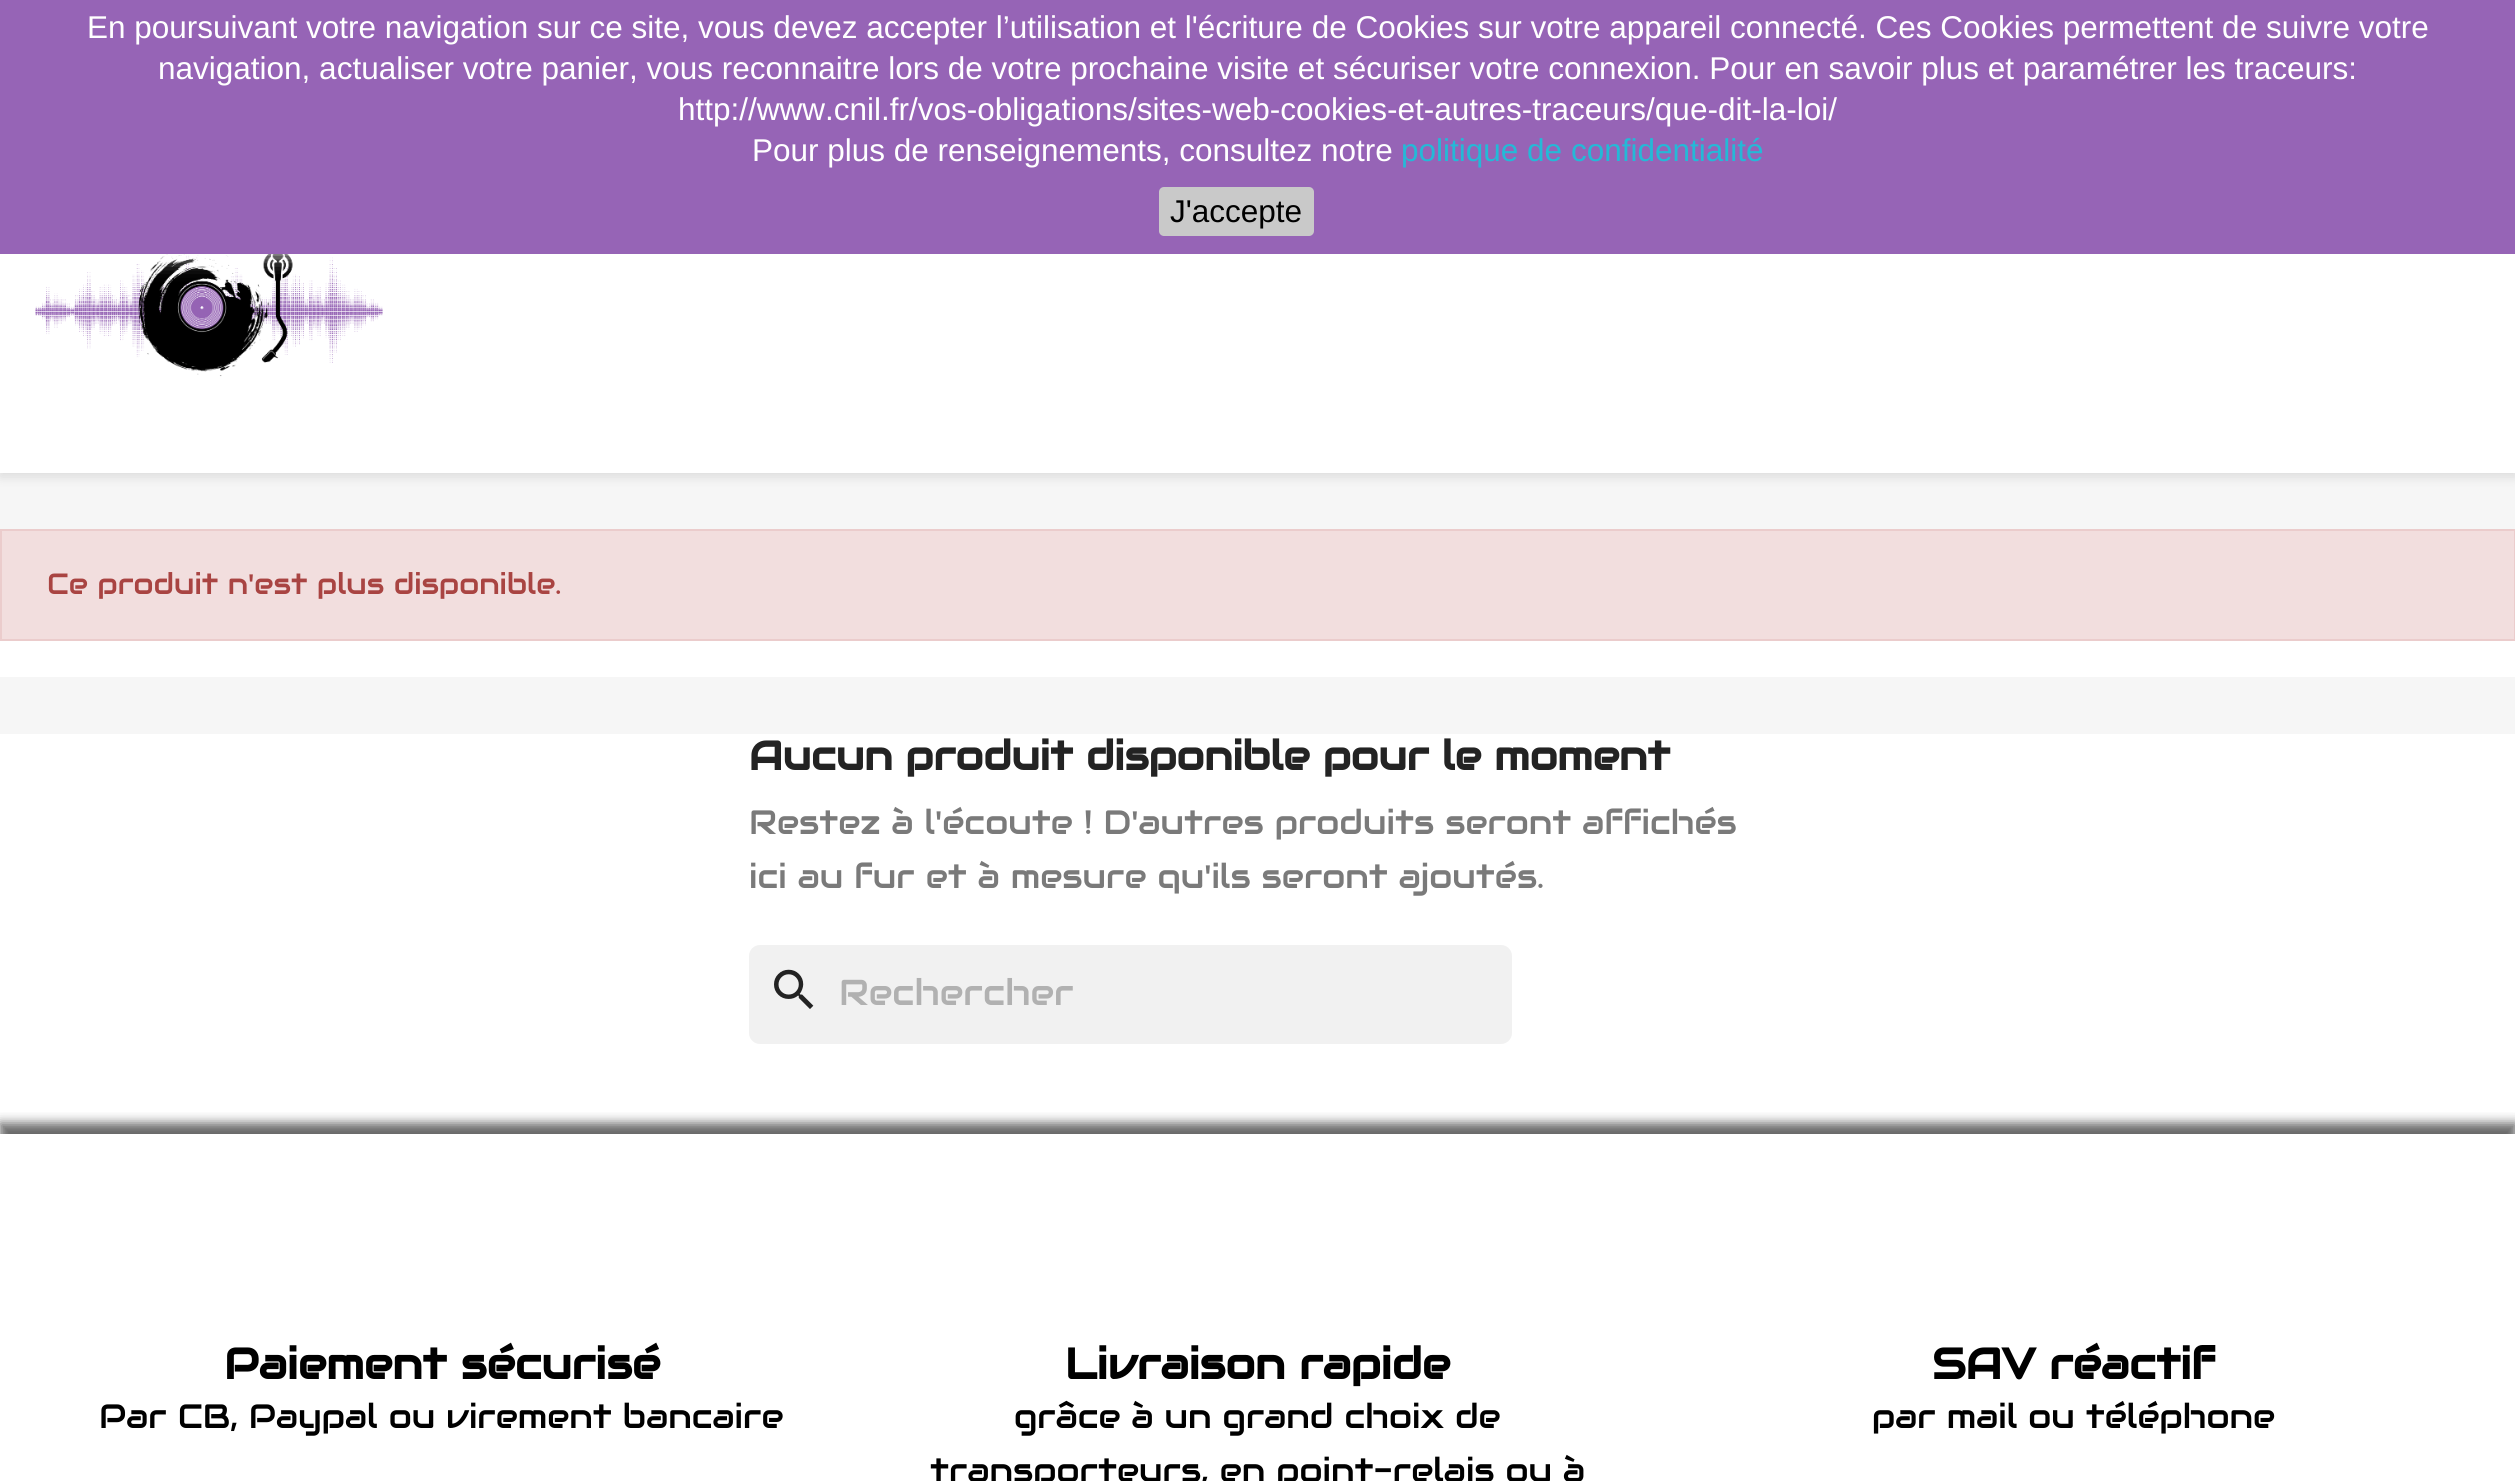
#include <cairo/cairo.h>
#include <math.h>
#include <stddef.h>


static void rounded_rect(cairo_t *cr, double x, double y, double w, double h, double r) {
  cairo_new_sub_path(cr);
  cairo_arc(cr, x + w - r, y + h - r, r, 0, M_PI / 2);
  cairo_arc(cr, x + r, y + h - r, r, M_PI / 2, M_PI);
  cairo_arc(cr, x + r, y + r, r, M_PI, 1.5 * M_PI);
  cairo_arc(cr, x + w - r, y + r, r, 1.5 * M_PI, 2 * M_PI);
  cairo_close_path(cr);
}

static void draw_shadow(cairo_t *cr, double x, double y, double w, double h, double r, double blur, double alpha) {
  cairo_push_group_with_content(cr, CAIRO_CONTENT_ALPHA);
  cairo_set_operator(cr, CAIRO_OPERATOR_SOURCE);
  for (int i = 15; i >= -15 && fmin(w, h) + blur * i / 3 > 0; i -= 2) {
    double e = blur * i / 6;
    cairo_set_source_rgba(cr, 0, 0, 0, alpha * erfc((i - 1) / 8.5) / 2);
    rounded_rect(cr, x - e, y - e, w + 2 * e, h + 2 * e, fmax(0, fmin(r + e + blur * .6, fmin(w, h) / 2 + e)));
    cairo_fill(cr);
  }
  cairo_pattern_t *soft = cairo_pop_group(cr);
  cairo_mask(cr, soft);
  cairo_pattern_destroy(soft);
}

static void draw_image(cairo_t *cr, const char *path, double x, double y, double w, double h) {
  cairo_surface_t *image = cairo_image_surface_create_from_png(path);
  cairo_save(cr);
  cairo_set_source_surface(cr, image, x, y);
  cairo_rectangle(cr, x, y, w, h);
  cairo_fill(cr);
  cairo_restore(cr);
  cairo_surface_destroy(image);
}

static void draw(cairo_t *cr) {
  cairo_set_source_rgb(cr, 1, 1, 1);
  cairo_paint(cr);
  cairo_set_source_rgb(cr, 246 / 255.0, 246 / 255.0, 246 / 255.0);
  cairo_rectangle(cr, 0, 473, 2515, 261);
  cairo_fill(cr);
  cairo_set_source_rgb(cr, 0, 0, 0);
  draw_shadow(cr, 0, 5, 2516, 472, 0, 5.5, 0.11);
  cairo_set_source_rgb(cr, 1, 1, 1);
  cairo_rectangle(cr, 0, 254, 2515, 219);
  cairo_fill(cr);
  draw_image(cr, "images/1.png", 35, 254, 348, 123);
  cairo_set_source_rgb(cr, 1, 1, 1);
  draw_shadow(cr, 0, 0, 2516, 254, 0, 11, 1);
  cairo_set_source_rgb(cr, 150 / 255.0, 100 / 255.0, 182 / 255.0);
  cairo_rectangle(cr, 0, 0, 2515, 254);
  cairo_fill(cr);
  cairo_set_source_rgb(cr, 201 / 255.0, 201 / 255.0, 201 / 255.0);
  rounded_rect(cr, 1159, 187, 155, 49, 5);
  cairo_fill(cr);
  cairo_save(cr);
  cairo_rectangle(cr, 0, 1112, 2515, 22);
  cairo_clip(cr);
  cairo_set_source_rgb(cr, 102 / 255.0, 102 / 255.0, 102 / 255.0);
  draw_shadow(cr, 0, 1123, 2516, 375, 0, 5.5, 1);
  cairo_restore(cr);
  cairo_set_source_rgb(cr, 1, 1, 1);
  cairo_rectangle(cr, 0, 641, 2515, 36);
  cairo_fill(cr);
  cairo_set_source_rgb(cr, 242 / 255.0, 222 / 255.0, 222 / 255.0);
  cairo_rectangle(cr, 1, 530, 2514, 110);
  cairo_fill_preserve(cr);
  cairo_set_source_rgb(cr, 235 / 255.0, 204 / 255.0, 204 / 255.0);
  cairo_stroke(cr);
  cairo_set_source_rgb(cr, 241 / 255.0, 241 / 255.0, 241 / 255.0);
  rounded_rect(cr, 749, 945, 763, 99, 11);
  cairo_fill(cr);
  draw_image(cr, "images/2.png", 774, 969, 40, 40);
  cairo_select_font_face(cr, "Liberation Sans", CAIRO_FONT_SLANT_NORMAL, CAIRO_FONT_WEIGHT_NORMAL);
  cairo_set_font_size(cr, 31.5);
  cairo_set_source_rgb(cr, 1, 1, 1);
  cairo_move_to(cr, 87, 38);
  cairo_show_text(cr, "En poursuivant votre navigation sur ce site, vous devez accepter l’utilisation et l'écriture de Cookies sur votre appareil connecté. Ces Cookies permettent de suivre votre");
  cairo_move_to(cr, 158, 79);
  cairo_show_text(cr, "navigation, actualiser votre panier, vous reconnaitre lors de votre prochaine visite et sécuriser votre connexion. Pour en savoir plus et paramétrer les traceurs:");
  cairo_move_to(cr, 678, 120);
  cairo_show_text(cr, "http://www.cnil.fr/vos-obligations/sites-web-cookies-et-autres-traceurs/que-dit-la-loi/");
  cairo_move_to(cr, 752, 161);
  cairo_show_text(cr, "Pour plus de renseignements, consultez notre");
  cairo_set_source_rgb(cr, 36 / 255.0, 185 / 255.0, 215 / 255.0);
  cairo_move_to(cr, 1401, 161);
  cairo_show_text(cr, "politique de confidentialité");
  cairo_set_source_rgb(cr, 0, 0, 0);
  cairo_move_to(cr, 1170, 222);
  cairo_show_text(cr, "J'accepte");
  cairo_select_font_face(cr, "Audiowide", CAIRO_FONT_SLANT_NORMAL, CAIRO_FONT_WEIGHT_BOLD);
  cairo_set_font_size(cr, 43.25);
  cairo_move_to(cr, 224, 1379);
  cairo_show_text(cr, "Paiement sécurisé");
  cairo_select_font_face(cr, "Audiowide", CAIRO_FONT_SLANT_NORMAL, CAIRO_FONT_WEIGHT_NORMAL);
  cairo_set_font_size(cr, 33.75);
  cairo_move_to(cr, 99, 1428);
  cairo_show_text(cr, "Par CB, Paypal ou virement bancaire");
  cairo_select_font_face(cr, "Audiowide", CAIRO_FONT_SLANT_NORMAL, CAIRO_FONT_WEIGHT_BOLD);
  cairo_set_font_size(cr, 43.25);
  cairo_move_to(cr, 1065, 1379);
  cairo_show_text(cr, "Livraison rapide");
  cairo_select_font_face(cr, "Audiowide", CAIRO_FONT_SLANT_NORMAL, CAIRO_FONT_WEIGHT_NORMAL);
  cairo_set_font_size(cr, 33.75);
  cairo_move_to(cr, 1014, 1428);
  cairo_show_text(cr, "grâce à un grand choix de");
  cairo_move_to(cr, 930, 1482);
  cairo_show_text(cr, "transporteurs, en point-relais ou à");
  cairo_select_font_face(cr, "Audiowide", CAIRO_FONT_SLANT_NORMAL, CAIRO_FONT_WEIGHT_BOLD);
  cairo_set_font_size(cr, 43.25);
  cairo_move_to(cr, 1932, 1379);
  cairo_show_text(cr, "SAV réactif");
  cairo_select_font_face(cr, "Audiowide", CAIRO_FONT_SLANT_NORMAL, CAIRO_FONT_WEIGHT_NORMAL);
  cairo_set_font_size(cr, 33.75);
  cairo_move_to(cr, 1872, 1428);
  cairo_show_text(cr, "par mail ou téléphone");
  cairo_set_font_size(cr, 29.25);
  cairo_set_source_rgb(cr, 169 / 255.0, 68 / 255.0, 66 / 255.0);
  cairo_move_to(cr, 47, 594);
  cairo_show_text(cr, "Ce produit n'est plus disponible.");
  cairo_select_font_face(cr, "Audiowide", CAIRO_FONT_SLANT_NORMAL, CAIRO_FONT_WEIGHT_BOLD);
  cairo_set_font_size(cr, 40.5);
  cairo_set_source_rgb(cr, 35 / 255.0, 35 / 255.0, 35 / 255.0);
  cairo_move_to(cr, 749, 770);
  cairo_show_text(cr, "Aucun produit disponible pour le moment");
  cairo_select_font_face(cr, "Audiowide", CAIRO_FONT_SLANT_NORMAL, CAIRO_FONT_WEIGHT_NORMAL);
  cairo_set_font_size(cr, 33.75);
  cairo_set_source_rgb(cr, 122 / 255.0, 122 / 255.0, 122 / 255.0);
  cairo_move_to(cr, 749, 834);
  cairo_show_text(cr, "Restez à l'écoute ! D'autres produits seront affichés");
  cairo_move_to(cr, 749, 888);
  cairo_show_text(cr, "ici au fur et à mesure qu'ils seront ajoutés.");
  cairo_set_font_size(cr, 36);
  cairo_set_source_rgb(cr, 177 / 255.0, 177 / 255.0, 177 / 255.0);
  cairo_move_to(cr, 839, 1005);
  cairo_show_text(cr, "Rechercher");
}

int main(void) {
  cairo_surface_t *surface = cairo_image_surface_create(CAIRO_FORMAT_RGB24, 2515, 1481);
  cairo_t *cr = cairo_create(surface);
  cairo_font_options_t *options = cairo_font_options_create();
  cairo_font_options_set_hint_metrics(options, CAIRO_HINT_METRICS_OFF);
  cairo_font_options_set_hint_style(options, CAIRO_HINT_STYLE_NONE);
  cairo_set_font_options(cr, options);
  cairo_set_miter_limit(cr, 4);
  draw(cr);
  cairo_surface_write_to_png(surface, "out.png");
  cairo_font_options_destroy(options);
  cairo_destroy(cr);
  cairo_surface_destroy(surface);
  return 0;
}
